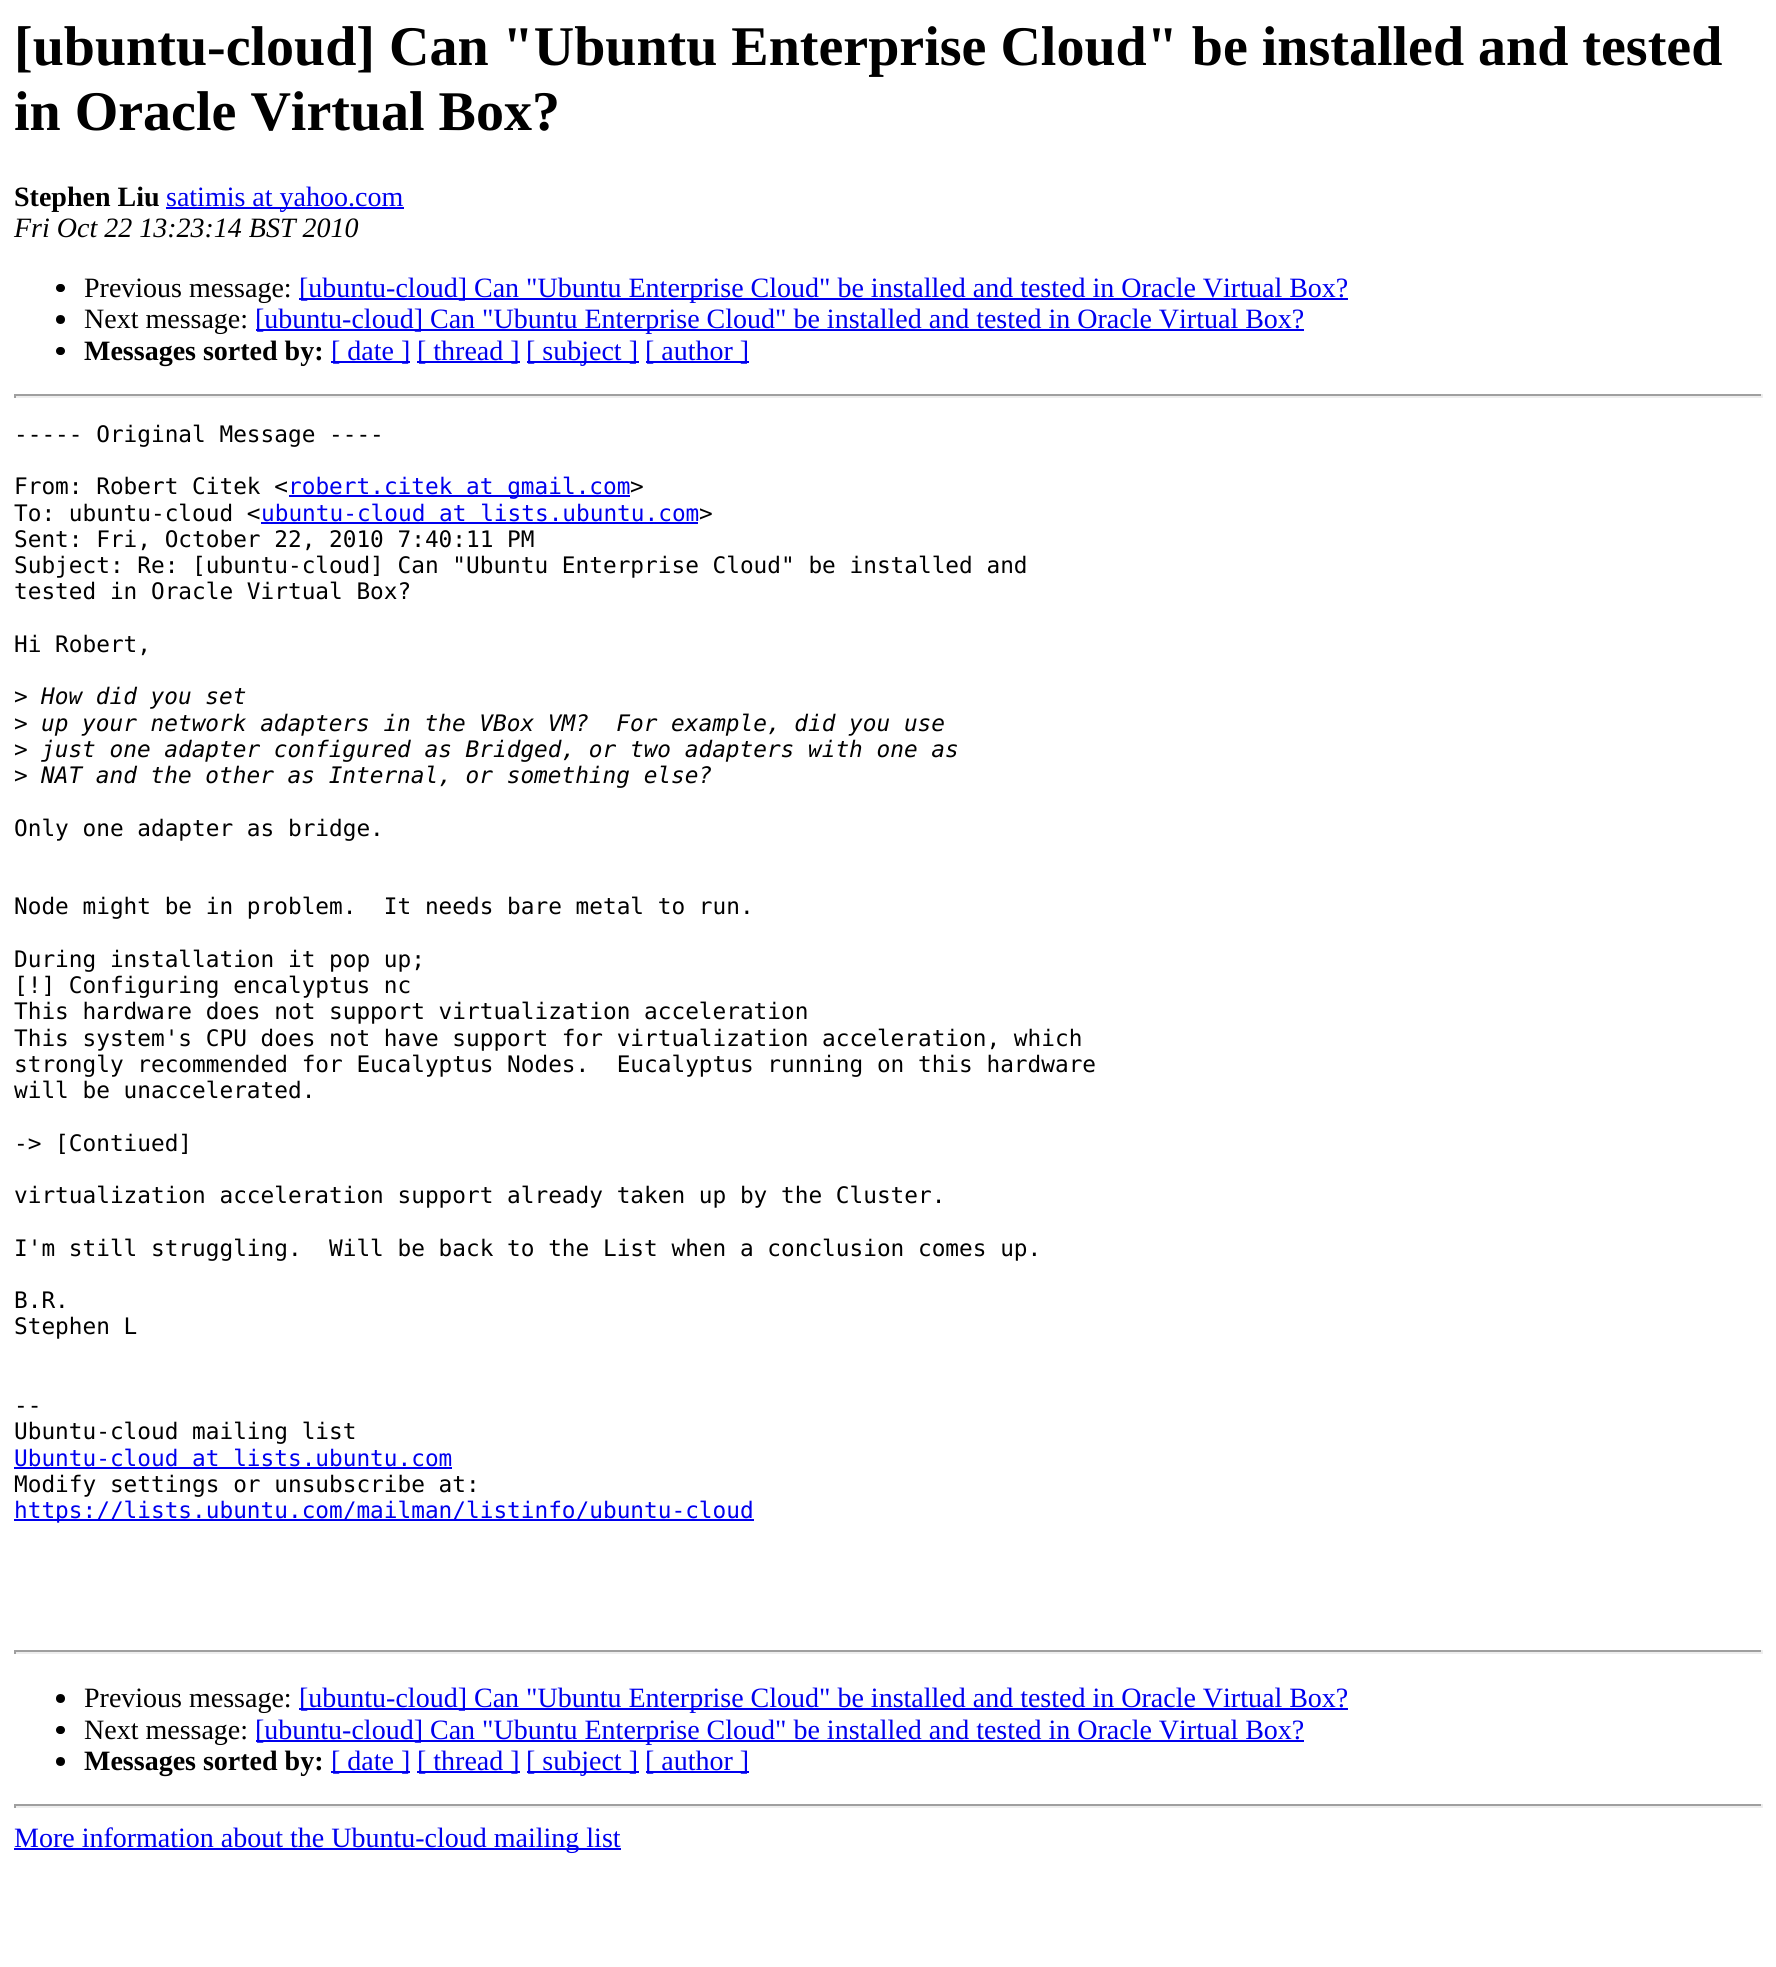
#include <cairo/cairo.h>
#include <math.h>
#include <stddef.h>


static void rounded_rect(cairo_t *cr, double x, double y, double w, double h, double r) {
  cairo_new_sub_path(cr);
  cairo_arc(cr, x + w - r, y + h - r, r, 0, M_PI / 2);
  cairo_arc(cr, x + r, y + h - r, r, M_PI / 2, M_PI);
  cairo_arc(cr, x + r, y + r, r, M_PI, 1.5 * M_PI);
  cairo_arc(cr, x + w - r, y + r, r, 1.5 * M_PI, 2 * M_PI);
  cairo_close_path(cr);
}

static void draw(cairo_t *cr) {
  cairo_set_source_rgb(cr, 1, 1, 1);
  cairo_paint(cr);
  cairo_set_source_rgb(cr, 0, 0, 238 / 255.0);
  cairo_rectangle(cr, 166, 207, 238, 2);
  cairo_fill(cr);
  cairo_set_source_rgb(cr, 0, 0, 0);
  rounded_rect(cr, 56, 284, 9, 8, 4);
  cairo_fill(cr);
  cairo_set_source_rgb(cr, 0, 0, 238 / 255.0);
  cairo_rectangle(cr, 299, 298, 1049, 2);
  cairo_fill(cr);
  cairo_set_source_rgb(cr, 0, 0, 0);
  cairo_arc(cr, 60.5, 319.5, 4.5, 0, 2 * M_PI);
  cairo_fill(cr);
  cairo_set_source_rgb(cr, 0, 0, 238 / 255.0);
  cairo_rectangle(cr, 256, 329, 1048, 2);
  cairo_fill(cr);
  cairo_set_source_rgb(cr, 0, 0, 0);
  rounded_rect(cr, 56, 347, 9, 8, 4);
  cairo_fill(cr);
  cairo_set_source_rgb(cr, 0, 0, 238 / 255.0);
  cairo_rectangle(cr, 331, 361, 79, 2);
  cairo_fill(cr);
  cairo_rectangle(cr, 417, 361, 103, 2);
  cairo_fill(cr);
  cairo_rectangle(cr, 527, 361, 112, 2);
  cairo_fill(cr);
  cairo_rectangle(cr, 646, 361, 103, 2);
  cairo_fill(cr);
  cairo_set_source_rgb(cr, 159 / 255.0, 159 / 255.0, 159 / 255.0);
  cairo_rectangle(cr, 14, 394, 1748, 2);
  cairo_fill(cr);
  cairo_set_source_rgb(cr, 238 / 255.0, 238 / 255.0, 238 / 255.0);
  cairo_rectangle(cr, 1761, 394, 2, 4);
  cairo_fill(cr);
  cairo_rectangle(cr, 14, 396, 1748, 2);
  cairo_fill(cr);
  cairo_set_source_rgb(cr, 159 / 255.0, 159 / 255.0, 159 / 255.0);
  cairo_rectangle(cr, 14, 394, 2, 4);
  cairo_fill(cr);
  cairo_set_source_rgb(cr, 0, 0, 238 / 255.0);
  cairo_rectangle(cr, 289, 495, 341, 2);
  cairo_fill(cr);
  cairo_rectangle(cr, 261, 522, 437, 2);
  cairo_fill(cr);
  cairo_rectangle(cr, 14, 1467, 438, 2);
  cairo_fill(cr);
  cairo_rectangle(cr, 14, 1519, 740, 2);
  cairo_fill(cr);
  cairo_set_source_rgb(cr, 159 / 255.0, 159 / 255.0, 159 / 255.0);
  cairo_rectangle(cr, 14, 1650, 1748, 2);
  cairo_fill(cr);
  cairo_set_source_rgb(cr, 238 / 255.0, 238 / 255.0, 238 / 255.0);
  cairo_rectangle(cr, 1761, 1650, 2, 4);
  cairo_fill(cr);
  cairo_rectangle(cr, 14, 1652, 1748, 2);
  cairo_fill(cr);
  cairo_set_source_rgb(cr, 159 / 255.0, 159 / 255.0, 159 / 255.0);
  cairo_rectangle(cr, 14, 1650, 2, 4);
  cairo_fill(cr);
  cairo_set_source_rgb(cr, 0, 0, 0);
  cairo_arc(cr, 60.5, 1698.5, 4.5, 0, 2 * M_PI);
  cairo_fill(cr);
  cairo_set_source_rgb(cr, 0, 0, 238 / 255.0);
  cairo_rectangle(cr, 299, 1708, 1049, 2);
  cairo_fill(cr);
  cairo_set_source_rgb(cr, 0, 0, 0);
  rounded_rect(cr, 56, 1726, 9, 8, 4);
  cairo_fill(cr);
  cairo_set_source_rgb(cr, 0, 0, 238 / 255.0);
  cairo_rectangle(cr, 256, 1740, 1048, 2);
  cairo_fill(cr);
  cairo_set_source_rgb(cr, 0, 0, 0);
  cairo_arc(cr, 60.5, 1761.5, 4.5, 0, 2 * M_PI);
  cairo_fill(cr);
  cairo_set_source_rgb(cr, 0, 0, 238 / 255.0);
  cairo_rectangle(cr, 331, 1771, 79, 2);
  cairo_fill(cr);
  cairo_rectangle(cr, 417, 1771, 103, 2);
  cairo_fill(cr);
  cairo_rectangle(cr, 527, 1771, 112, 2);
  cairo_fill(cr);
  cairo_rectangle(cr, 646, 1771, 103, 2);
  cairo_fill(cr);
  cairo_set_source_rgb(cr, 159 / 255.0, 159 / 255.0, 159 / 255.0);
  cairo_rectangle(cr, 14, 1804, 1748, 2);
  cairo_fill(cr);
  cairo_set_source_rgb(cr, 238 / 255.0, 238 / 255.0, 238 / 255.0);
  cairo_rectangle(cr, 1761, 1804, 2, 4);
  cairo_fill(cr);
  cairo_rectangle(cr, 14, 1806, 1748, 2);
  cairo_fill(cr);
  cairo_set_source_rgb(cr, 159 / 255.0, 159 / 255.0, 159 / 255.0);
  cairo_rectangle(cr, 14, 1804, 2, 4);
  cairo_fill(cr);
  cairo_set_source_rgb(cr, 0, 0, 238 / 255.0);
  cairo_rectangle(cr, 14, 1848, 607, 2);
  cairo_fill(cr);
  cairo_select_font_face(cr, "Liberation Serif", CAIRO_FONT_SLANT_NORMAL, CAIRO_FONT_WEIGHT_BOLD);
  cairo_set_font_size(cr, 56);
  cairo_set_source_rgb(cr, 0, 0, 0);
  cairo_move_to(cr, 14, 65);
  cairo_show_text(cr, "[ubuntu-cloud] Can \"Ubuntu Enterprise Cloud\" be installed and tested");
  cairo_move_to(cr, 14, 130);
  cairo_show_text(cr, "in Oracle Virtual Box?");
  cairo_set_font_size(cr, 28);
  cairo_move_to(cr, 14, 206);
  cairo_show_text(cr, "Stephen Liu");
  cairo_select_font_face(cr, "Liberation Serif", CAIRO_FONT_SLANT_NORMAL, CAIRO_FONT_WEIGHT_NORMAL);
  cairo_set_source_rgb(cr, 0, 0, 238 / 255.0);
  cairo_move_to(cr, 166, 206);
  cairo_show_text(cr, "satimis at yahoo.com");
  cairo_select_font_face(cr, "Liberation Serif", CAIRO_FONT_SLANT_ITALIC, CAIRO_FONT_WEIGHT_NORMAL);
  cairo_set_source_rgb(cr, 0, 0, 0);
  cairo_move_to(cr, 14, 237);
  cairo_show_text(cr, "Fri Oct 22 13:23:14 BST 2010");
  cairo_select_font_face(cr, "Liberation Serif", CAIRO_FONT_SLANT_NORMAL, CAIRO_FONT_WEIGHT_NORMAL);
  cairo_move_to(cr, 84, 297);
  cairo_show_text(cr, "Previous message:");
  cairo_set_source_rgb(cr, 0, 0, 238 / 255.0);
  cairo_move_to(cr, 299, 297);
  cairo_show_text(cr, "[ubuntu-cloud] Can \"Ubuntu Enterprise Cloud\" be installed and tested in Oracle Virtual Box?");
  cairo_set_source_rgb(cr, 0, 0, 0);
  cairo_move_to(cr, 84, 328);
  cairo_show_text(cr, "Next message:");
  cairo_set_source_rgb(cr, 0, 0, 238 / 255.0);
  cairo_move_to(cr, 255, 328);
  cairo_show_text(cr, "[ubuntu-cloud] Can \"Ubuntu Enterprise Cloud\" be installed and tested in Oracle Virtual Box?");
  cairo_select_font_face(cr, "Liberation Serif", CAIRO_FONT_SLANT_NORMAL, CAIRO_FONT_WEIGHT_BOLD);
  cairo_set_source_rgb(cr, 0, 0, 0);
  cairo_move_to(cr, 84, 360);
  cairo_show_text(cr, "Messages sorted by:");
  cairo_select_font_face(cr, "Liberation Serif", CAIRO_FONT_SLANT_NORMAL, CAIRO_FONT_WEIGHT_NORMAL);
  cairo_set_source_rgb(cr, 0, 0, 238 / 255.0);
  cairo_move_to(cr, 331, 360);
  cairo_show_text(cr, "[ date ]");
  cairo_move_to(cr, 417, 360);
  cairo_show_text(cr, "[ thread ]");
  cairo_move_to(cr, 526, 360);
  cairo_show_text(cr, "[ subject ]");
  cairo_move_to(cr, 645, 360);
  cairo_show_text(cr, "[ author ]");
  cairo_select_font_face(cr, "DejaVu Sans Mono", CAIRO_FONT_SLANT_NORMAL, CAIRO_FONT_WEIGHT_NORMAL);
  cairo_set_font_size(cr, 22.75);
  cairo_set_source_rgb(cr, 0, 0, 0);
  cairo_move_to(cr, 14, 442);
  cairo_show_text(cr, "----- Original Message ----");
  cairo_move_to(cr, 14, 494);
  cairo_show_text(cr, "From: Robert Citek <");
  cairo_set_source_rgb(cr, 0, 0, 238 / 255.0);
  cairo_move_to(cr, 288, 494);
  cairo_show_text(cr, "robert.citek at gmail.com");
  cairo_set_source_rgb(cr, 0, 0, 0);
  cairo_move_to(cr, 630, 494);
  cairo_show_text(cr, ">");
  cairo_move_to(cr, 14, 521);
  cairo_show_text(cr, "To: ubuntu-cloud <");
  cairo_set_source_rgb(cr, 0, 0, 238 / 255.0);
  cairo_move_to(cr, 261, 521);
  cairo_show_text(cr, "ubuntu-cloud at lists.ubuntu.com");
  cairo_set_source_rgb(cr, 0, 0, 0);
  cairo_move_to(cr, 699, 521);
  cairo_show_text(cr, ">");
  cairo_move_to(cr, 14, 547);
  cairo_show_text(cr, "Sent: Fri, October 22, 2010 7:40:11 PM");
  cairo_move_to(cr, 14, 573);
  cairo_show_text(cr, "Subject: Re: [ubuntu-cloud] Can \"Ubuntu Enterprise Cloud\" be installed and");
  cairo_move_to(cr, 14, 599);
  cairo_show_text(cr, "tested in Oracle Virtual Box?");
  cairo_move_to(cr, 14, 652);
  cairo_show_text(cr, "Hi Robert,");
  cairo_move_to(cr, 14, 704);
  cairo_show_text(cr, ">");
  cairo_select_font_face(cr, "DejaVu Sans Mono", CAIRO_FONT_SLANT_ITALIC, CAIRO_FONT_WEIGHT_NORMAL);
  cairo_move_to(cr, 41, 704);
  cairo_show_text(cr, "How did you set");
  cairo_select_font_face(cr, "DejaVu Sans Mono", CAIRO_FONT_SLANT_NORMAL, CAIRO_FONT_WEIGHT_NORMAL);
  cairo_move_to(cr, 14, 731);
  cairo_show_text(cr, ">");
  cairo_select_font_face(cr, "DejaVu Sans Mono", CAIRO_FONT_SLANT_ITALIC, CAIRO_FONT_WEIGHT_NORMAL);
  cairo_move_to(cr, 41, 731);
  cairo_show_text(cr, "up your network adapters in the VBox VM?  For example, did you use");
  cairo_select_font_face(cr, "DejaVu Sans Mono", CAIRO_FONT_SLANT_NORMAL, CAIRO_FONT_WEIGHT_NORMAL);
  cairo_move_to(cr, 14, 757);
  cairo_show_text(cr, ">");
  cairo_select_font_face(cr, "DejaVu Sans Mono", CAIRO_FONT_SLANT_ITALIC, CAIRO_FONT_WEIGHT_NORMAL);
  cairo_move_to(cr, 41, 757);
  cairo_show_text(cr, "just one adapter configured as Bridged, or two adapters with one as");
  cairo_select_font_face(cr, "DejaVu Sans Mono", CAIRO_FONT_SLANT_NORMAL, CAIRO_FONT_WEIGHT_NORMAL);
  cairo_move_to(cr, 14, 783);
  cairo_show_text(cr, ">");
  cairo_select_font_face(cr, "DejaVu Sans Mono", CAIRO_FONT_SLANT_ITALIC, CAIRO_FONT_WEIGHT_NORMAL);
  cairo_move_to(cr, 41, 783);
  cairo_show_text(cr, "NAT and the other as Internal, or something else?");
  cairo_select_font_face(cr, "DejaVu Sans Mono", CAIRO_FONT_SLANT_NORMAL, CAIRO_FONT_WEIGHT_NORMAL);
  cairo_move_to(cr, 14, 836);
  cairo_show_text(cr, "Only one adapter as bridge.");
  cairo_move_to(cr, 14, 914);
  cairo_show_text(cr, "Node might be in problem.  It needs bare metal to run.");
  cairo_move_to(cr, 14, 967);
  cairo_show_text(cr, "During installation it pop up;");
  cairo_move_to(cr, 14, 993);
  cairo_show_text(cr, "[!] Configuring encalyptus nc");
  cairo_move_to(cr, 14, 1019);
  cairo_show_text(cr, "This hardware does not support virtualization acceleration");
  cairo_move_to(cr, 14, 1046);
  cairo_show_text(cr, "This system's CPU does not have support for virtualization acceleration, which");
  cairo_move_to(cr, 14, 1072);
  cairo_show_text(cr, "strongly recommended for Eucalyptus Nodes.  Eucalyptus running on this hardware");
  cairo_move_to(cr, 14, 1098);
  cairo_show_text(cr, "will be unaccelerated.");
  cairo_move_to(cr, 14, 1151);
  cairo_show_text(cr, "-> [Contiued]");
  cairo_move_to(cr, 14, 1203);
  cairo_show_text(cr, "virtualization acceleration support already taken up by the Cluster.");
  cairo_move_to(cr, 14, 1256);
  cairo_show_text(cr, "I'm still struggling.  Will be back to the List when a conclusion comes up.");
  cairo_move_to(cr, 14, 1308);
  cairo_show_text(cr, "B.R.");
  cairo_move_to(cr, 14, 1334);
  cairo_show_text(cr, "Stephen L");
  cairo_move_to(cr, 14, 1413);
  cairo_show_text(cr, "--");
  cairo_move_to(cr, 14, 1439);
  cairo_show_text(cr, "Ubuntu-cloud mailing list");
  cairo_set_source_rgb(cr, 0, 0, 238 / 255.0);
  cairo_move_to(cr, 14, 1466);
  cairo_show_text(cr, "Ubuntu-cloud at lists.ubuntu.com");
  cairo_set_source_rgb(cr, 0, 0, 0);
  cairo_move_to(cr, 14, 1492);
  cairo_show_text(cr, "Modify settings or unsubscribe at:");
  cairo_set_source_rgb(cr, 0, 0, 238 / 255.0);
  cairo_move_to(cr, 14, 1518);
  cairo_show_text(cr, "https://lists.ubuntu.com/mailman/listinfo/ubuntu-cloud");
  cairo_select_font_face(cr, "Liberation Serif", CAIRO_FONT_SLANT_NORMAL, CAIRO_FONT_WEIGHT_NORMAL);
  cairo_set_font_size(cr, 28);
  cairo_set_source_rgb(cr, 0, 0, 0);
  cairo_move_to(cr, 84, 1707);
  cairo_show_text(cr, "Previous message:");
  cairo_set_source_rgb(cr, 0, 0, 238 / 255.0);
  cairo_move_to(cr, 299, 1707);
  cairo_show_text(cr, "[ubuntu-cloud] Can \"Ubuntu Enterprise Cloud\" be installed and tested in Oracle Virtual Box?");
  cairo_set_source_rgb(cr, 0, 0, 0);
  cairo_move_to(cr, 84, 1739);
  cairo_show_text(cr, "Next message:");
  cairo_set_source_rgb(cr, 0, 0, 238 / 255.0);
  cairo_move_to(cr, 255, 1739);
  cairo_show_text(cr, "[ubuntu-cloud] Can \"Ubuntu Enterprise Cloud\" be installed and tested in Oracle Virtual Box?");
  cairo_select_font_face(cr, "Liberation Serif", CAIRO_FONT_SLANT_NORMAL, CAIRO_FONT_WEIGHT_BOLD);
  cairo_set_source_rgb(cr, 0, 0, 0);
  cairo_move_to(cr, 84, 1770);
  cairo_show_text(cr, "Messages sorted by:");
  cairo_select_font_face(cr, "Liberation Serif", CAIRO_FONT_SLANT_NORMAL, CAIRO_FONT_WEIGHT_NORMAL);
  cairo_set_source_rgb(cr, 0, 0, 238 / 255.0);
  cairo_move_to(cr, 331, 1770);
  cairo_show_text(cr, "[ date ]");
  cairo_move_to(cr, 417, 1770);
  cairo_show_text(cr, "[ thread ]");
  cairo_move_to(cr, 526, 1770);
  cairo_show_text(cr, "[ subject ]");
  cairo_move_to(cr, 645, 1770);
  cairo_show_text(cr, "[ author ]");
  cairo_move_to(cr, 14, 1847);
  cairo_show_text(cr, "More information about the Ubuntu-cloud mailing list");
}

int main(void) {
  cairo_surface_t *surface = cairo_image_surface_create(CAIRO_FORMAT_RGB24, 1776, 1967);
  cairo_t *cr = cairo_create(surface);
  cairo_font_options_t *options = cairo_font_options_create();
  cairo_font_options_set_hint_metrics(options, CAIRO_HINT_METRICS_OFF);
  cairo_font_options_set_hint_style(options, CAIRO_HINT_STYLE_NONE);
  cairo_set_font_options(cr, options);
  cairo_set_miter_limit(cr, 4);
  draw(cr);
  cairo_surface_write_to_png(surface, "out.png");
  cairo_font_options_destroy(options);
  cairo_destroy(cr);
  cairo_surface_destroy(surface);
  return 0;
}
